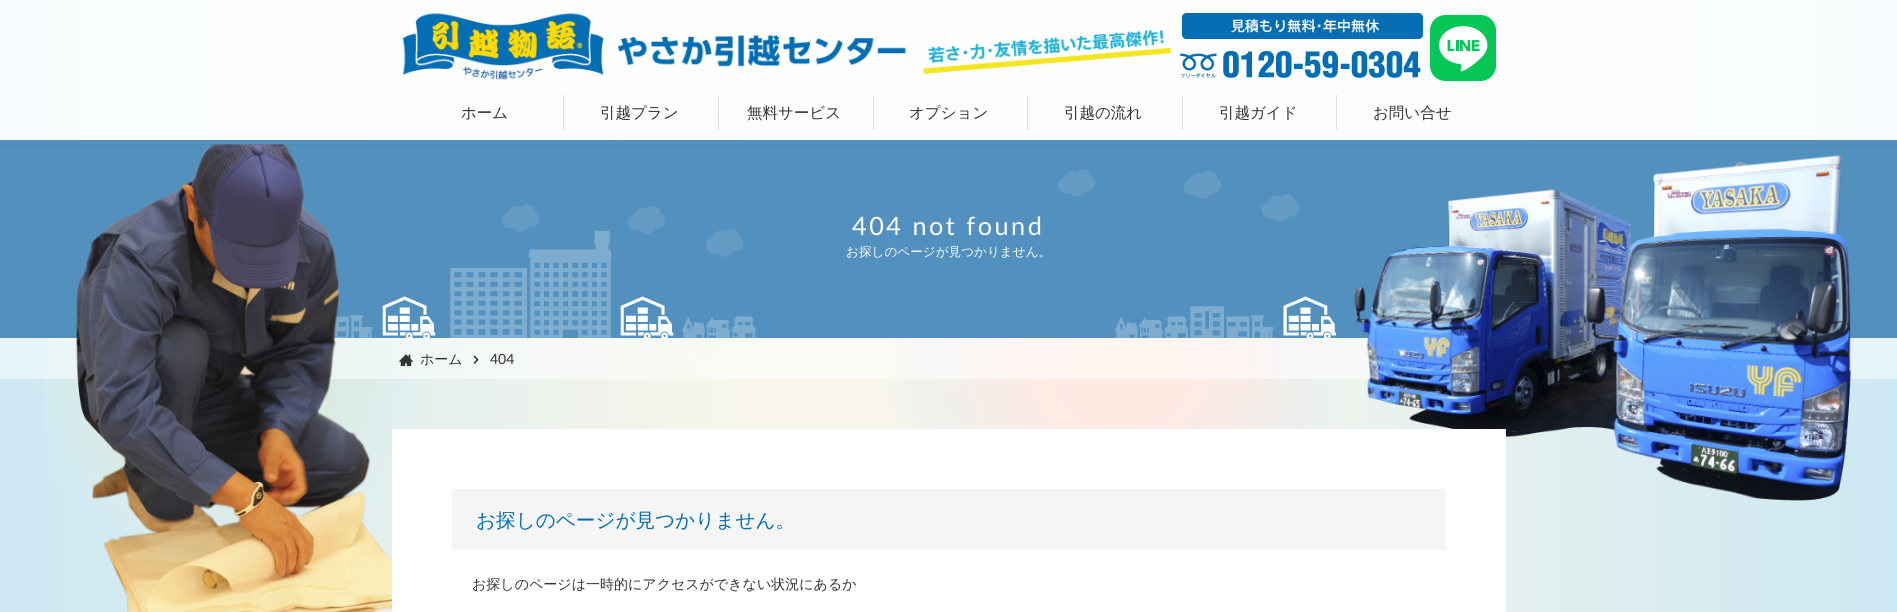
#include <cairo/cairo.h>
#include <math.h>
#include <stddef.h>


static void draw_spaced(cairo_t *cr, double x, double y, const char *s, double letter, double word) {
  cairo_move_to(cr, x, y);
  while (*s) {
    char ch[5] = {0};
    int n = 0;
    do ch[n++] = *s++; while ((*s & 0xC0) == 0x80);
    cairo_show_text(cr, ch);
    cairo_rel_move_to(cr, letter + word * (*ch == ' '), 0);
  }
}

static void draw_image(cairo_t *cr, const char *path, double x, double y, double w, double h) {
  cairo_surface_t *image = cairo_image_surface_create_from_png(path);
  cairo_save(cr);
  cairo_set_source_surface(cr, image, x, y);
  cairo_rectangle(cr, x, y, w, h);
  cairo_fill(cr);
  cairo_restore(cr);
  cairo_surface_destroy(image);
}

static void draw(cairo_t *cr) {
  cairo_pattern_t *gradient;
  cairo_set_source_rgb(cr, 1, 1, 1);
  cairo_paint(cr);
  gradient = cairo_pattern_create_linear(0, 472, 1897, 471);
  cairo_pattern_add_color_stop_rgba(gradient, 0, 204 / 255.0, 232 / 255.0, 243 / 255.0, 1);
  cairo_pattern_add_color_stop_rgba(gradient, 0.39, 248 / 255.0, 246 / 255.0, 234 / 255.0, 1);
  cairo_pattern_add_color_stop_rgba(gradient, 0.61, 248 / 255.0, 246 / 255.0, 234 / 255.0, 1);
  cairo_pattern_add_color_stop_rgba(gradient, 1, 204 / 255.0, 232 / 255.0, 243 / 255.0, 1);
  cairo_set_source(cr, gradient);
  cairo_pattern_destroy(gradient);
  cairo_rectangle(cr, 0, 0, 1897, 612);
  cairo_fill(cr);
  draw_image(cr, "images/1.png", 44, 40, 1290, 572);
  cairo_set_source_rgba(cr, 1, 1, 1, 0.88);
  cairo_rectangle(cr, 0, 0, 1897, 90);
  cairo_fill(cr);
  draw_image(cr, "images/2.png", 402, 13, 504, 67);
  draw_image(cr, "images/3.png", 923, 30, 249, 44);
  draw_image(cr, "images/4.png", 1180, 13, 243, 65);
  draw_image(cr, "images/5.png", 1430, 15, 66, 66);
  cairo_rectangle(cr, 0, 90, 1897, 50);
  cairo_fill(cr);
  cairo_set_source_rgb(cr, 221 / 255.0, 221 / 255.0, 221 / 255.0);
  cairo_rectangle(cr, 563, 95, 1, 35);
  cairo_fill(cr);
  cairo_rectangle(cr, 718, 95, 1, 35);
  cairo_fill(cr);
  cairo_rectangle(cr, 873, 95, 1, 35);
  cairo_fill(cr);
  cairo_rectangle(cr, 1027, 95, 1, 35);
  cairo_fill(cr);
  cairo_rectangle(cr, 1182, 95, 1, 35);
  cairo_fill(cr);
  cairo_rectangle(cr, 1336, 95, 1, 35);
  cairo_fill(cr);
  cairo_set_source_rgb(cr, 82 / 255.0, 144 / 255.0, 190 / 255.0);
  cairo_rectangle(cr, 0, 140, 1897, 198);
  cairo_fill(cr);
  draw_image(cr, "images/6.png", 295, 169, 1278, 169);
  cairo_set_source_rgba(cr, 1, 1, 1, 0.5);
  cairo_rectangle(cr, 0, 338, 1897, 41);
  cairo_fill(cr);
  draw_image(cr, "images/7.png", 76, 144, 316, 468);
  cairo_set_source_rgba(cr, 42 / 255.0, 42 / 255.0, 42 / 255.0, 0.05);
  cairo_rectangle(cr, 0, 144, 1897, 1);
  cairo_fill(cr);
  draw_image(cr, "images/8.png", 1354, 155, 497, 346);
  draw_image(cr, "images/9.png", 399, 354, 14, 12);
  draw_image(cr, "images/10.png", 473, 355, 6, 9);
  cairo_set_source_rgb(cr, 1, 1, 1);
  cairo_rectangle(cr, 392, 429, 1114, 183);
  cairo_fill(cr);
  cairo_set_source_rgb(cr, 245 / 255.0, 245 / 255.0, 245 / 255.0);
  cairo_rectangle(cr, 452, 489, 994, 61);
  cairo_fill(cr);
  cairo_select_font_face(cr, "WenQuanYi Zen Hei Medium", CAIRO_FONT_SLANT_NORMAL, CAIRO_FONT_WEIGHT_NORMAL);
  cairo_set_font_size(cr, 15.5);
  cairo_set_source_rgb(cr, 51 / 255.0, 51 / 255.0, 51 / 255.0);
  cairo_move_to(cr, 461, 118);
  cairo_show_text(cr, "ホーム");
  cairo_move_to(cr, 600, 118);
  cairo_show_text(cr, "引越プラン");
  cairo_move_to(cr, 747, 118);
  cairo_show_text(cr, "無料サービス");
  cairo_move_to(cr, 909, 118);
  cairo_show_text(cr, "オプション");
  cairo_move_to(cr, 1064, 118);
  cairo_show_text(cr, "引越の流れ");
  cairo_move_to(cr, 1219, 118);
  cairo_show_text(cr, "引越ガイド");
  cairo_move_to(cr, 1373, 118);
  cairo_show_text(cr, "お問い合せ");
  cairo_select_font_face(cr, "Lato", CAIRO_FONT_SLANT_NORMAL, CAIRO_FONT_WEIGHT_NORMAL);
  cairo_set_font_size(cr, 25.25);
  cairo_set_source_rgb(cr, 1, 1, 1);
  draw_spaced(cr, 852, 235, "404 not found", 2.5, 0);
  cairo_select_font_face(cr, "WenQuanYi Zen Hei Medium", CAIRO_FONT_SLANT_NORMAL, CAIRO_FONT_WEIGHT_NORMAL);
  cairo_set_font_size(cr, 12.6);
  cairo_move_to(cr, 846, 256);
  cairo_show_text(cr, "お探しのページが見つかりません。");
  cairo_set_font_size(cr, 14);
  cairo_set_source_rgb(cr, 51 / 255.0, 51 / 255.0, 51 / 255.0);
  cairo_move_to(cr, 420, 364);
  cairo_show_text(cr, "ホーム");
  cairo_select_font_face(cr, "Lato", CAIRO_FONT_SLANT_NORMAL, CAIRO_FONT_WEIGHT_NORMAL);
  cairo_move_to(cr, 490, 364);
  cairo_show_text(cr, "404");
  cairo_select_font_face(cr, "WenQuanYi Zen Hei Medium", CAIRO_FONT_SLANT_NORMAL, CAIRO_FONT_WEIGHT_NORMAL);
  cairo_set_font_size(cr, 19.6);
  cairo_set_source_rgb(cr, 3 / 255.0, 110 / 255.0, 177 / 255.0);
  cairo_move_to(cr, 476, 527);
  cairo_show_text(cr, "お探しのページが見つかりません。");
  cairo_set_font_size(cr, 14);
  cairo_set_source_rgb(cr, 51 / 255.0, 51 / 255.0, 51 / 255.0);
  cairo_move_to(cr, 472, 589);
  cairo_show_text(cr, "お探しのページは一時的にアクセスができない状況にあるか");
}

int main(void) {
  cairo_surface_t *surface = cairo_image_surface_create(CAIRO_FORMAT_RGB24, 1897, 612);
  cairo_t *cr = cairo_create(surface);
  cairo_font_options_t *options = cairo_font_options_create();
  cairo_font_options_set_hint_metrics(options, CAIRO_HINT_METRICS_OFF);
  cairo_font_options_set_hint_style(options, CAIRO_HINT_STYLE_NONE);
  cairo_set_font_options(cr, options);
  cairo_set_miter_limit(cr, 4);
  draw(cr);
  cairo_surface_write_to_png(surface, "out.png");
  cairo_font_options_destroy(options);
  cairo_destroy(cr);
  cairo_surface_destroy(surface);
  return 0;
}
